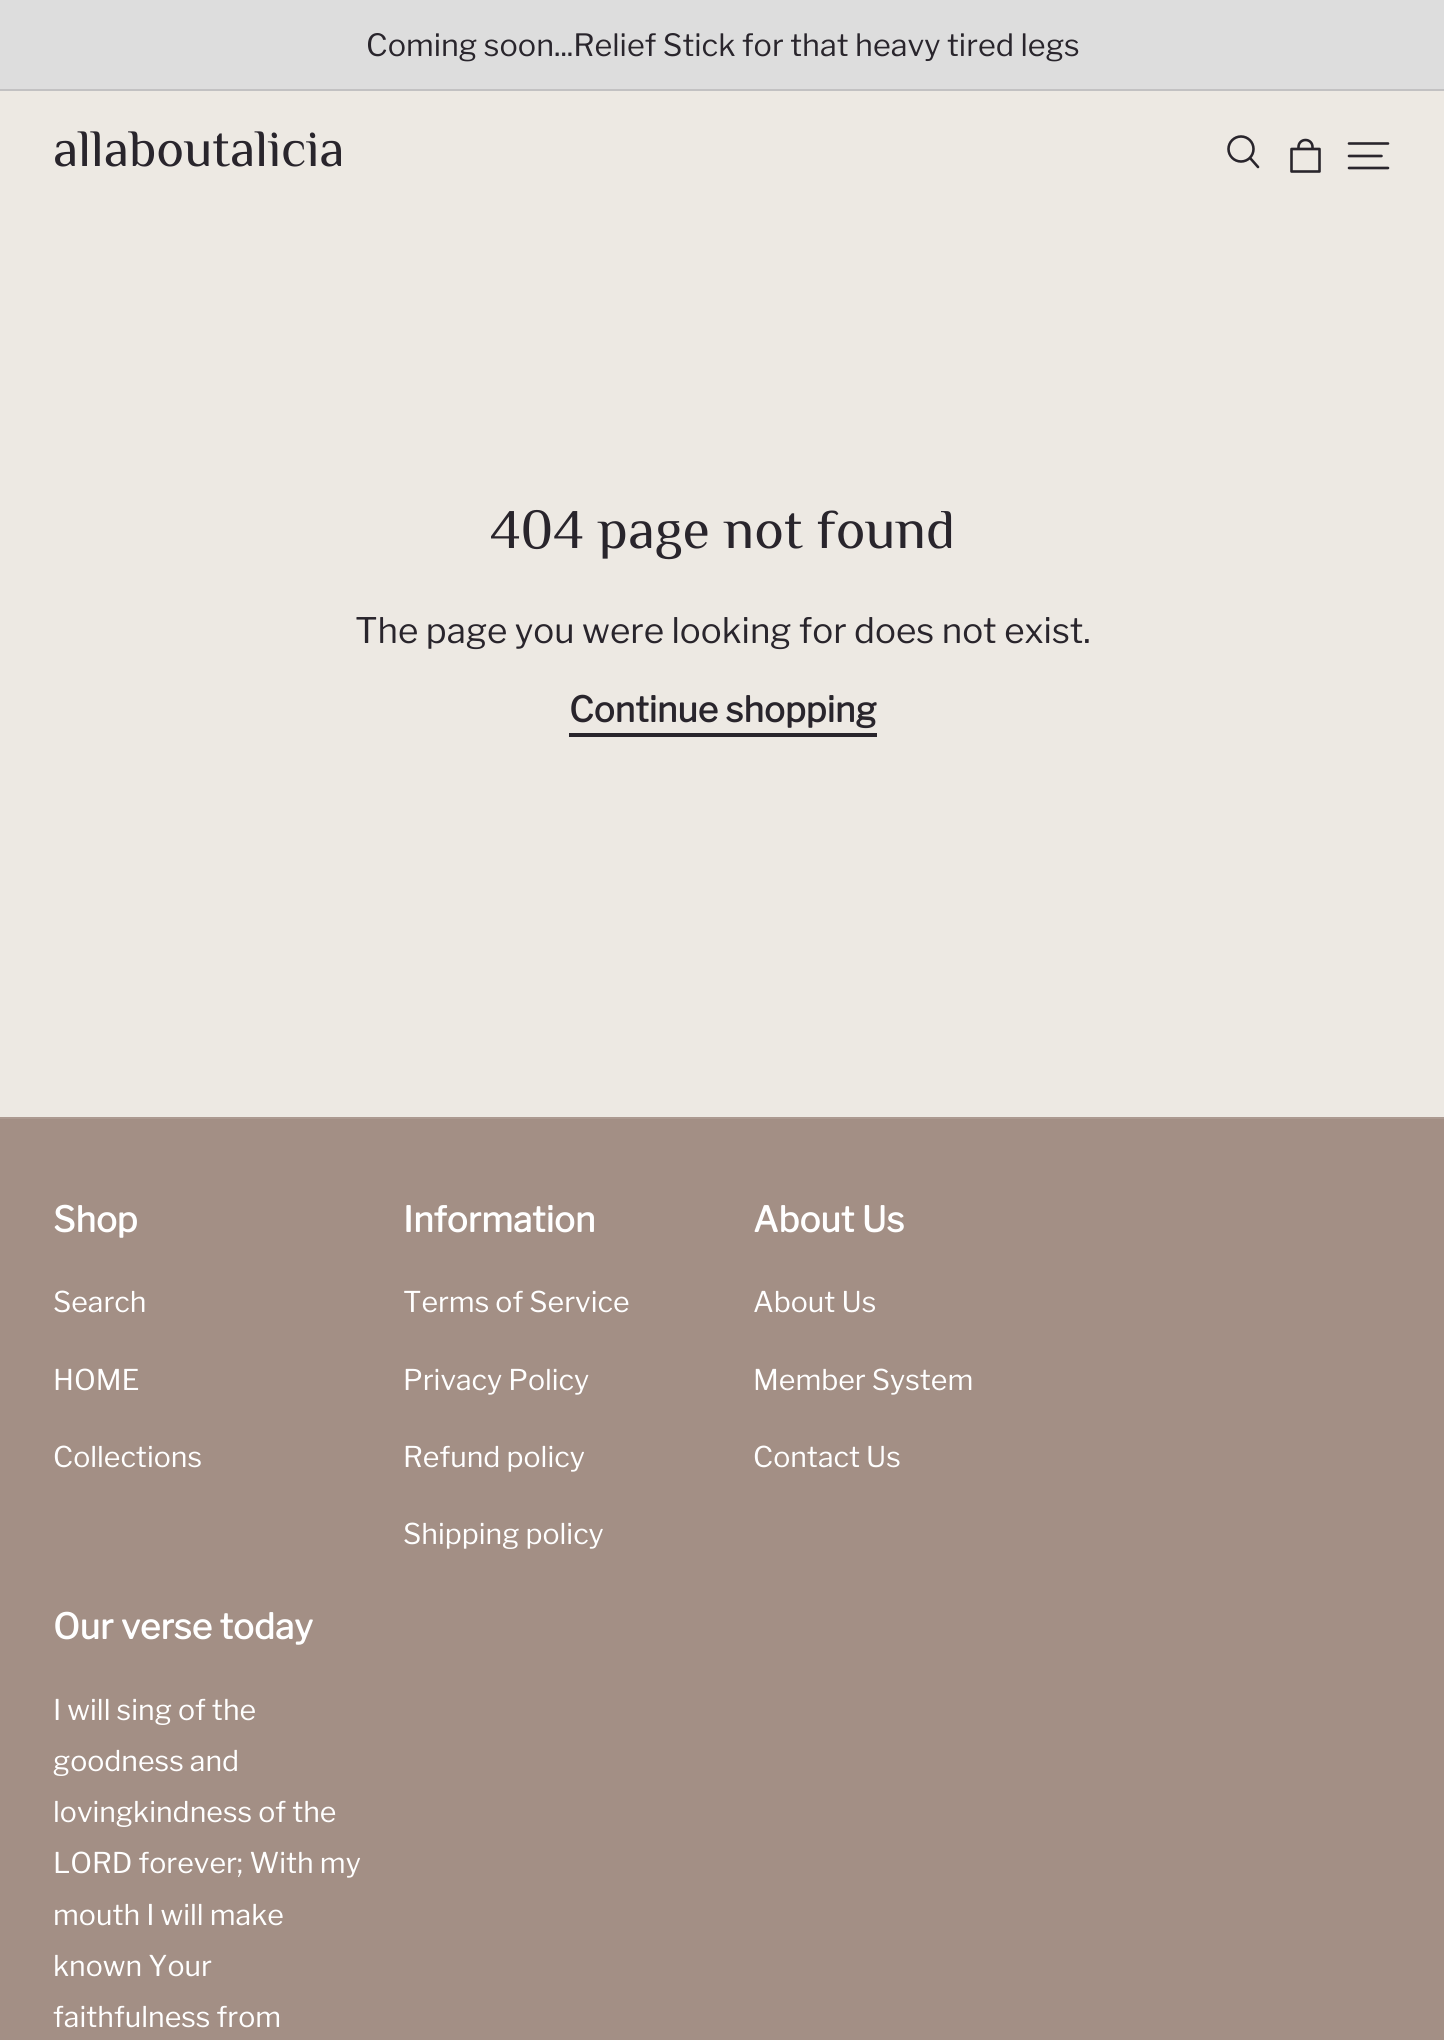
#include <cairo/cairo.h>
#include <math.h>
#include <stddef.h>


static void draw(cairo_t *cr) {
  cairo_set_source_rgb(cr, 237 / 255.0, 233 / 255.0, 227 / 255.0);
  cairo_paint(cr);
  cairo_set_source_rgb(cr, 221 / 255.0, 221 / 255.0, 221 / 255.0);
  cairo_rectangle(cr, 0, 0, 1444, 89);
  cairo_fill(cr);
  cairo_set_source_rgb(cr, 194 / 255.0, 193 / 255.0, 194 / 255.0);
  cairo_rectangle(cr, 0, 89, 1444, 2);
  cairo_fill(cr);
  cairo_arc(cr, 1241, 149, 12.5, 0, 2 * M_PI);
  cairo_set_source_rgb(cr, 41 / 255.0, 37 / 255.0, 44 / 255.0);
  cairo_set_line_width(cr, 2.6);
  cairo_stroke(cr);
  cairo_new_path(cr);
  cairo_move_to(cr, 1250.5, 158.5);
  cairo_line_to(cr, 1258, 167);
  cairo_set_line_cap(cr, CAIRO_LINE_CAP_ROUND);
  cairo_stroke(cr);
  cairo_new_path(cr);
  cairo_move_to(cr, 1291.5, 171.5);
  cairo_line_to(cr, 1291.5, 149);
  cairo_line_to(cr, 1319.5, 149);
  cairo_line_to(cr, 1319.5, 171.5);
  cairo_close_path(cr);
  cairo_move_to(cr, 1298.5, 149);
  cairo_line_to(cr, 1298.5, 147);
  cairo_curve_to(cr, 1298.5, 143, 1301.5, 140, 1305.5, 140);
  cairo_curve_to(cr, 1309.5, 140, 1312.5, 143, 1312.5, 147);
  cairo_line_to(cr, 1312.5, 149);
  cairo_set_line_join(cr, CAIRO_LINE_JOIN_ROUND);
  cairo_stroke(cr);
  cairo_new_path(cr);
  cairo_move_to(cr, 1349, 143.5);
  cairo_line_to(cr, 1388, 143.5);
  cairo_move_to(cr, 1349, 156);
  cairo_line_to(cr, 1381.5, 156);
  cairo_move_to(cr, 1349, 168);
  cairo_line_to(cr, 1388, 168);
  cairo_set_line_join(cr, CAIRO_LINE_JOIN_MITER);
  cairo_stroke(cr);
  cairo_rectangle(cr, 569, 733, 308, 4);
  cairo_fill(cr);
  cairo_set_source_rgb(cr, 163 / 255.0, 143 / 255.0, 133 / 255.0);
  cairo_rectangle(cr, 0, 1119, 1444, 921);
  cairo_fill(cr);
  cairo_set_source_rgb(cr, 172 / 255.0, 154 / 255.0, 145 / 255.0);
  cairo_rectangle(cr, 0, 1117, 1444, 2);
  cairo_fill(cr);
  cairo_select_font_face(cr, "Libre Franklin Thin", CAIRO_FONT_SLANT_NORMAL, CAIRO_FONT_WEIGHT_NORMAL);
  cairo_set_font_size(cr, 30.6);
  cairo_set_source_rgb(cr, 41 / 255.0, 37 / 255.0, 44 / 255.0);
  cairo_move_to(cr, 366, 56);
  cairo_show_text(cr, "Coming soon...Relief Stick for that heavy tired legs");
  cairo_select_font_face(cr, "El Messiri", CAIRO_FONT_SLANT_NORMAL, CAIRO_FONT_WEIGHT_NORMAL);
  cairo_set_font_size(cr, 52.5);
  cairo_move_to(cr, 53, 166);
  cairo_show_text(cr, "allaboutalicia");
  cairo_set_font_size(cr, 56);
  cairo_move_to(cr, 490, 548);
  cairo_show_text(cr, "404 page not found");
  cairo_select_font_face(cr, "Libre Franklin Thin", CAIRO_FONT_SLANT_NORMAL, CAIRO_FONT_WEIGHT_NORMAL);
  cairo_set_font_size(cr, 35);
  cairo_move_to(cr, 355, 643);
  cairo_show_text(cr, "The page you were looking for does not exist.");
  cairo_select_font_face(cr, "Libre Franklin", CAIRO_FONT_SLANT_NORMAL, CAIRO_FONT_WEIGHT_BOLD);
  cairo_move_to(cr, 569, 722);
  cairo_show_text(cr, "Continue shopping");
  cairo_set_source_rgb(cr, 1, 1, 1);
  cairo_move_to(cr, 53, 1232);
  cairo_show_text(cr, "Shop");
  cairo_select_font_face(cr, "Libre Franklin Thin", CAIRO_FONT_SLANT_NORMAL, CAIRO_FONT_WEIGHT_NORMAL);
  cairo_set_font_size(cr, 28.5);
  cairo_move_to(cr, 53, 1312);
  cairo_show_text(cr, "Search");
  cairo_move_to(cr, 53, 1390);
  cairo_show_text(cr, "HOME");
  cairo_move_to(cr, 53, 1467);
  cairo_show_text(cr, "Collections");
  cairo_select_font_face(cr, "Libre Franklin", CAIRO_FONT_SLANT_NORMAL, CAIRO_FONT_WEIGHT_BOLD);
  cairo_set_font_size(cr, 35);
  cairo_move_to(cr, 403, 1232);
  cairo_show_text(cr, "Information");
  cairo_select_font_face(cr, "Libre Franklin Thin", CAIRO_FONT_SLANT_NORMAL, CAIRO_FONT_WEIGHT_NORMAL);
  cairo_set_font_size(cr, 28.5);
  cairo_move_to(cr, 403, 1312);
  cairo_show_text(cr, "Terms of Service");
  cairo_move_to(cr, 403, 1390);
  cairo_show_text(cr, "Privacy Policy");
  cairo_move_to(cr, 403, 1467);
  cairo_show_text(cr, "Refund policy");
  cairo_move_to(cr, 403, 1544);
  cairo_show_text(cr, "Shipping policy");
  cairo_select_font_face(cr, "Libre Franklin", CAIRO_FONT_SLANT_NORMAL, CAIRO_FONT_WEIGHT_BOLD);
  cairo_set_font_size(cr, 35);
  cairo_move_to(cr, 753, 1232);
  cairo_show_text(cr, "About Us");
  cairo_select_font_face(cr, "Libre Franklin Thin", CAIRO_FONT_SLANT_NORMAL, CAIRO_FONT_WEIGHT_NORMAL);
  cairo_set_font_size(cr, 28.5);
  cairo_move_to(cr, 753, 1312);
  cairo_show_text(cr, "About Us");
  cairo_move_to(cr, 753, 1390);
  cairo_show_text(cr, "Member System");
  cairo_move_to(cr, 753, 1467);
  cairo_show_text(cr, "Contact Us");
  cairo_select_font_face(cr, "Libre Franklin", CAIRO_FONT_SLANT_NORMAL, CAIRO_FONT_WEIGHT_BOLD);
  cairo_set_font_size(cr, 35);
  cairo_move_to(cr, 53, 1639);
  cairo_show_text(cr, "Our verse today");
  cairo_select_font_face(cr, "Libre Franklin Thin", CAIRO_FONT_SLANT_NORMAL, CAIRO_FONT_WEIGHT_NORMAL);
  cairo_set_font_size(cr, 28.5);
  cairo_move_to(cr, 53, 1720);
  cairo_show_text(cr, "I will sing of the");
  cairo_move_to(cr, 53, 1771);
  cairo_show_text(cr, "goodness and");
  cairo_move_to(cr, 53, 1822);
  cairo_show_text(cr, "lovingkindness of the");
  cairo_move_to(cr, 53, 1873);
  cairo_show_text(cr, "LORD forever; With my");
  cairo_move_to(cr, 53, 1925);
  cairo_show_text(cr, "mouth I will make");
  cairo_move_to(cr, 53, 1976);
  cairo_show_text(cr, "known Your");
  cairo_move_to(cr, 53, 2027);
  cairo_show_text(cr, "faithfulness from");
}

int main(void) {
  cairo_surface_t *surface = cairo_image_surface_create(CAIRO_FORMAT_RGB24, 1444, 2040);
  cairo_t *cr = cairo_create(surface);
  cairo_font_options_t *options = cairo_font_options_create();
  cairo_font_options_set_hint_metrics(options, CAIRO_HINT_METRICS_OFF);
  cairo_font_options_set_hint_style(options, CAIRO_HINT_STYLE_NONE);
  cairo_set_font_options(cr, options);
  cairo_set_miter_limit(cr, 4);
  draw(cr);
  cairo_surface_write_to_png(surface, "out.png");
  cairo_font_options_destroy(options);
  cairo_destroy(cr);
  cairo_surface_destroy(surface);
  return 0;
}
